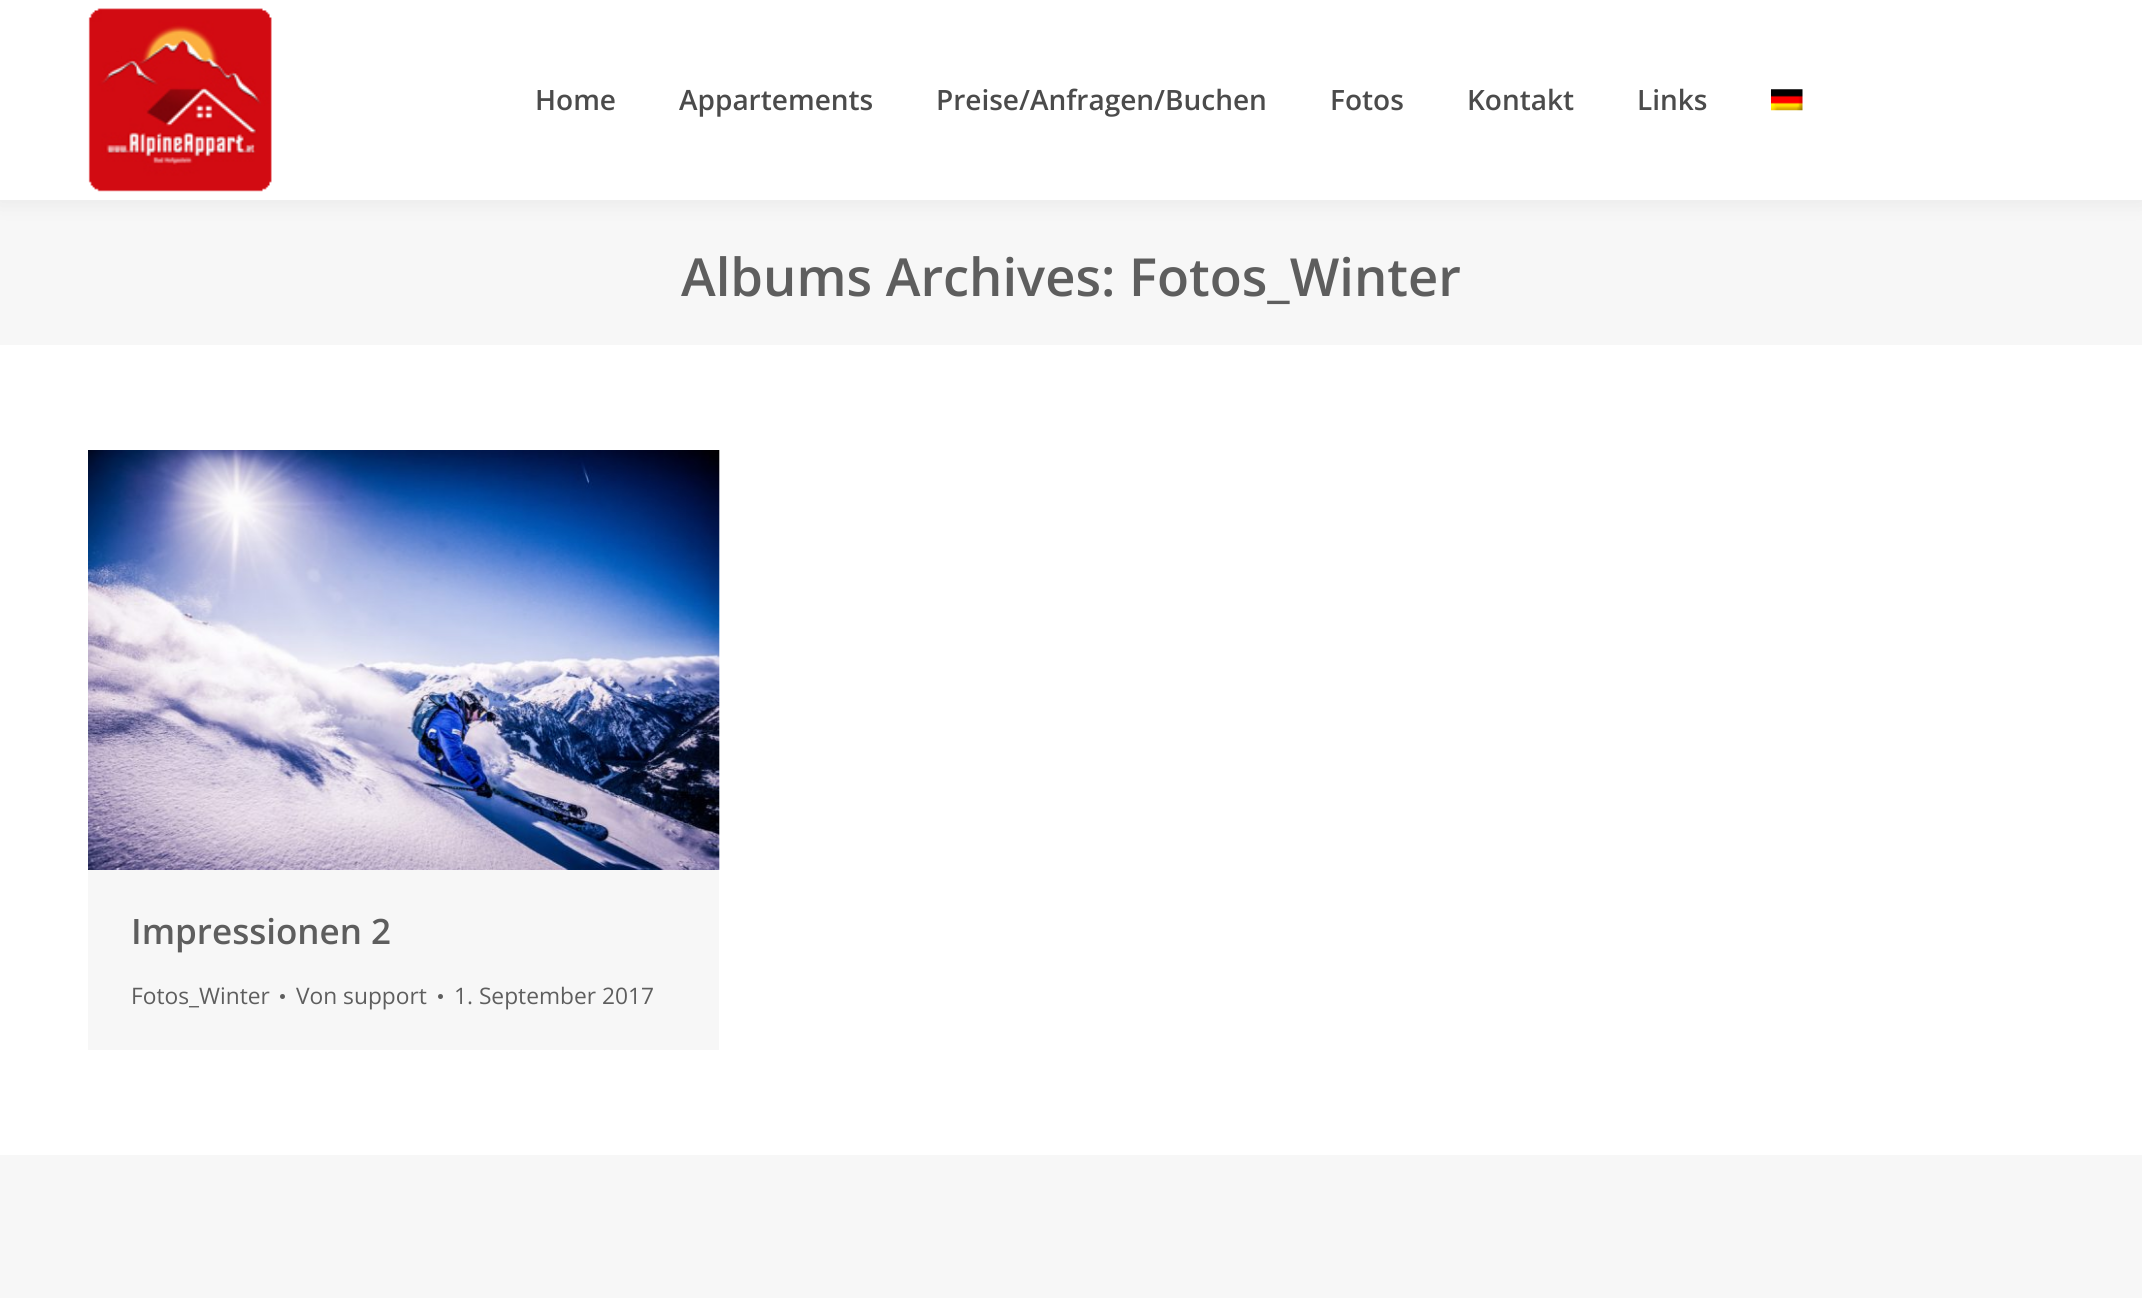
#include <cairo/cairo.h>
#include <math.h>
#include <stddef.h>


static void rounded_rect(cairo_t *cr, double x, double y, double w, double h, double r) {
  cairo_new_sub_path(cr);
  cairo_arc(cr, x + w - r, y + h - r, r, 0, M_PI / 2);
  cairo_arc(cr, x + r, y + h - r, r, M_PI / 2, M_PI);
  cairo_arc(cr, x + r, y + r, r, M_PI, 1.5 * M_PI);
  cairo_arc(cr, x + w - r, y + r, r, 1.5 * M_PI, 2 * M_PI);
  cairo_close_path(cr);
}

static void draw_shadow(cairo_t *cr, double x, double y, double w, double h, double r, double blur, double alpha) {
  cairo_push_group_with_content(cr, CAIRO_CONTENT_ALPHA);
  cairo_set_operator(cr, CAIRO_OPERATOR_SOURCE);
  for (int i = 15; i >= -15 && fmin(w, h) + blur * i / 3 > 0; i -= 2) {
    double e = blur * i / 6;
    cairo_set_source_rgba(cr, 0, 0, 0, alpha * erfc((i - 1) / 8.5) / 2);
    rounded_rect(cr, x - e, y - e, w + 2 * e, h + 2 * e, fmax(0, fmin(r + e + blur * .6, fmin(w, h) / 2 + e)));
    cairo_fill(cr);
  }
  cairo_pattern_t *soft = cairo_pop_group(cr);
  cairo_mask(cr, soft);
  cairo_pattern_destroy(soft);
}

static void draw_image(cairo_t *cr, const char *path, double x, double y, double w, double h) {
  cairo_surface_t *image = cairo_image_surface_create_from_png(path);
  cairo_save(cr);
  cairo_set_source_surface(cr, image, x, y);
  cairo_rectangle(cr, x, y, w, h);
  cairo_fill(cr);
  cairo_restore(cr);
  cairo_surface_destroy(image);
}

static void draw(cairo_t *cr) {
  cairo_set_source_rgb(cr, 247 / 255.0, 247 / 255.0, 247 / 255.0);
  cairo_paint(cr);
  cairo_set_source_rgb(cr, 1, 1, 1);
  cairo_rectangle(cr, 0, 345, 2142, 810);
  cairo_fill(cr);
  cairo_set_source_rgb(cr, 0, 0, 0);
  draw_shadow(cr, -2, -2, 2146, 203, 0, 13, 0.07);
  cairo_set_source_rgb(cr, 1, 1, 1);
  cairo_rectangle(cr, 0, 0, 2142, 200);
  cairo_fill(cr);
  draw_image(cr, "images/1.png", 88, 8, 184, 184);
  draw_image(cr, "images/2.png", 1771, 89, 32, 22);
  cairo_set_source_rgb(cr, 247 / 255.0, 247 / 255.0, 247 / 255.0);
  cairo_rectangle(cr, 88, 870, 631, 180);
  cairo_fill(cr);
  draw_image(cr, "images/3.png", 88, 450, 632, 420);
  cairo_set_source_rgb(cr, 94 / 255.0, 94 / 255.0, 94 / 255.0);
  cairo_arc(cr, 282.5, 996.5, 2.5, 0, 2 * M_PI);
  cairo_fill(cr);
  cairo_arc(cr, 440.5, 996.5, 2.5, 0, 2 * M_PI);
  cairo_fill(cr);
  cairo_select_font_face(cr, "Open Sans SemiBold", CAIRO_FONT_SLANT_NORMAL, CAIRO_FONT_WEIGHT_NORMAL);
  cairo_set_font_size(cr, 28);
  cairo_set_source_rgb(cr, 75 / 255.0, 75 / 255.0, 75 / 255.0);
  cairo_move_to(cr, 535, 110);
  cairo_show_text(cr, "Home");
  cairo_move_to(cr, 679, 110);
  cairo_show_text(cr, "Appartements");
  cairo_move_to(cr, 936, 110);
  cairo_show_text(cr, "Preise/Anfragen/Buchen");
  cairo_move_to(cr, 1330, 110);
  cairo_show_text(cr, "Fotos");
  cairo_move_to(cr, 1467, 110);
  cairo_show_text(cr, "Kontakt");
  cairo_move_to(cr, 1637, 110);
  cairo_show_text(cr, "Links");
  cairo_set_font_size(cr, 52.5);
  cairo_set_source_rgb(cr, 94 / 255.0, 94 / 255.0, 94 / 255.0);
  cairo_move_to(cr, 681, 296);
  cairo_show_text(cr, "Albums Archives: Fotos_Winter");
  cairo_set_font_size(cr, 35);
  cairo_move_to(cr, 131, 944);
  cairo_show_text(cr, "Impressionen 2");
  cairo_select_font_face(cr, "Open Sans", CAIRO_FONT_SLANT_NORMAL, CAIRO_FONT_WEIGHT_NORMAL);
  cairo_set_font_size(cr, 22.75);
  cairo_move_to(cr, 131, 1004);
  cairo_show_text(cr, "Fotos_Winter");
  cairo_move_to(cr, 296, 1004);
  cairo_show_text(cr, "Von support");
  cairo_move_to(cr, 454, 1004);
  cairo_show_text(cr, "1. September 2017");
}

int main(void) {
  cairo_surface_t *surface = cairo_image_surface_create(CAIRO_FORMAT_RGB24, 2142, 1298);
  cairo_t *cr = cairo_create(surface);
  cairo_font_options_t *options = cairo_font_options_create();
  cairo_font_options_set_hint_metrics(options, CAIRO_HINT_METRICS_OFF);
  cairo_font_options_set_hint_style(options, CAIRO_HINT_STYLE_NONE);
  cairo_set_font_options(cr, options);
  cairo_set_miter_limit(cr, 4);
  draw(cr);
  cairo_surface_write_to_png(surface, "out.png");
  cairo_font_options_destroy(options);
  cairo_destroy(cr);
  cairo_surface_destroy(surface);
  return 0;
}
